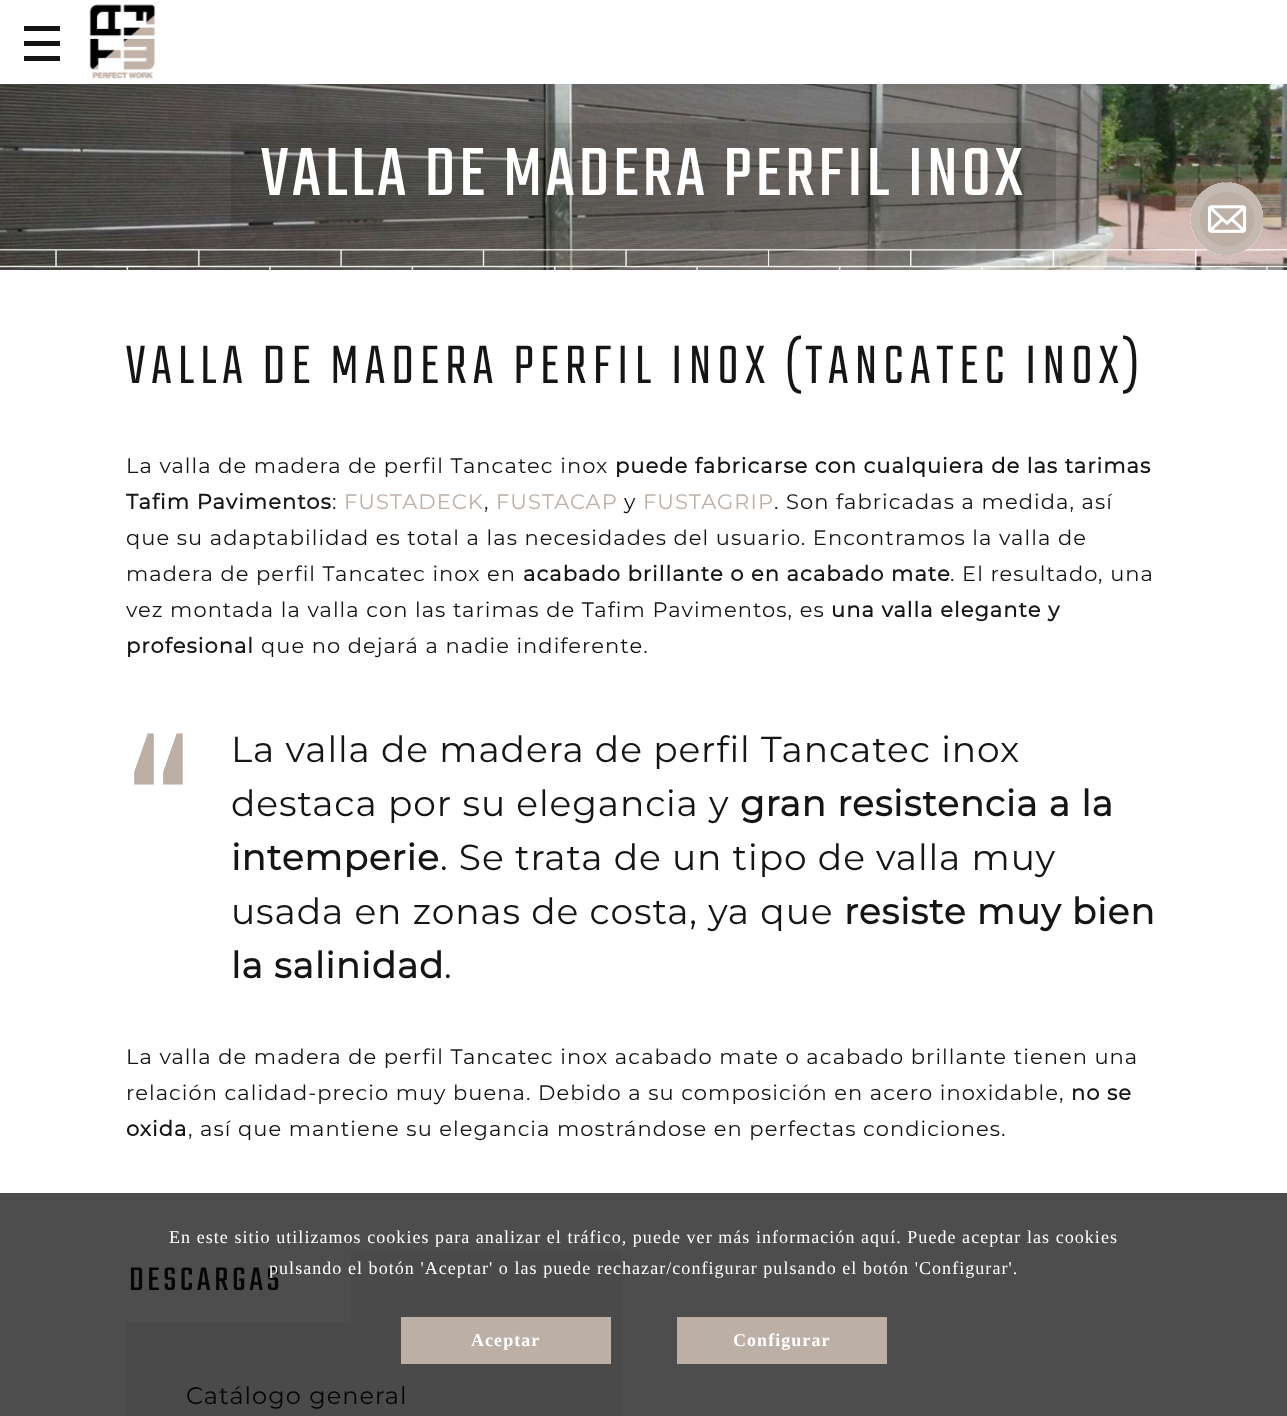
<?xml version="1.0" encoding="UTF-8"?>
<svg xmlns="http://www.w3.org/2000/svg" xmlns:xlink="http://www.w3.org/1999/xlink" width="1287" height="1416">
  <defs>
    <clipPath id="clip1"><rect x="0" y="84" width="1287" height="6" /></clipPath>
  </defs>
  <rect width="100%" height="100%" fill="#ffffff" />
  <rect y="1193" width="1287" height="223" fill="#4d4d4d" />
  <image x="0" y="84" width="1287" height="186" xlink:href="image3.png" />
  <g clip-path="url(#clip1)">
    <rect width="1287" height="84" fill="#000000" fill-opacity="0.1" filter="blur(7.5px)" />
  </g>
  <rect x="24" y="41" width="36" height="5" fill="#151515" />
  <rect x="24" y="26" width="36" height="5" fill="#151515" />
  <rect x="24" y="56" width="36" height="5" fill="#151515" />
  <image x="89" y="4" width="67" height="75" xlink:href="image1.png" />
  <image x="1190" y="182" width="74" height="73" xlink:href="image2.png" />
  <rect x="231" y="123" width="825" height="108" fill="#000000" fill-opacity="0.1" />
  <rect x="126" y="1251" width="495" height="165" fill="#4a4a4a" />
  <rect x="126" y="1251" width="225" height="71" fill="#4d4d4d" />
  <rect x="401" y="1317" width="210" height="47" fill="#bcafa5" />
  <rect x="677" y="1317" width="210" height="47" fill="#bcafa5" />
  <text x="261" y="195" style="font-family: Teko; font-size: 75px; letter-spacing: 3.75px; fill: #ffffff">VALLA DE MADERA PERFIL INOX</text>
  <text x="126" y="383" style="font-family: Teko; font-size: 60px; font-weight: 300; letter-spacing: 6px; fill: #151515">VALLA DE MADERA PERFIL INOX (TANCATEC INOX)</text>
  <text x="126" y="473" style="font-family: Montserrat; font-size: 21px; font-weight: 100; letter-spacing: 1.05px; fill: #151515">La valla de madera de perfil Tancatec inox</text>
  <text x="615" y="473" style="font-family: Montserrat; font-size: 21px; font-weight: bold; letter-spacing: 1.05px; fill: #151515">puede fabricarse con cualquiera de las tarimas</text>
  <text x="126" y="509" style="font-family: Montserrat; font-size: 21px; font-weight: bold; letter-spacing: 1.05px; fill: #151515">Tafim Pavimentos</text>
  <text x="332" y="509" style="font-family: Montserrat; font-size: 21px; font-weight: 100; letter-spacing: 1.05px; fill: #151515">:</text>
  <text x="344" y="509" style="font-family: Montserrat; font-size: 21px; font-weight: 100; letter-spacing: 1.05px; fill: #bcafa5">FUSTADECK</text>
  <text x="484" y="509" style="font-family: Montserrat; font-size: 21px; font-weight: 100; letter-spacing: 1.05px; fill: #151515">,</text>
  <text x="496" y="509" style="font-family: Montserrat; font-size: 21px; font-weight: 100; letter-spacing: 1.05px; fill: #bcafa5">FUSTACAP</text>
  <text x="624" y="509" style="font-family: Montserrat; font-size: 21px; font-weight: 100; letter-spacing: 1.05px; fill: #151515">y</text>
  <text x="643" y="509" style="font-family: Montserrat; font-size: 21px; font-weight: 100; letter-spacing: 1.05px; fill: #bcafa5">FUSTAGRIP</text>
  <text x="774" y="509" style="font-family: Montserrat; font-size: 21px; font-weight: 100; letter-spacing: 1.05px; fill: #151515">. Son fabricadas a medida, así</text>
  <text x="126" y="545" style="font-family: Montserrat; font-size: 21px; font-weight: 100; letter-spacing: 1.05px; fill: #151515">que su adaptabilidad es total a las necesidades del usuario. Encontramos la valla de</text>
  <text x="126" y="581" style="font-family: Montserrat; font-size: 21px; font-weight: 100; letter-spacing: 1.05px; fill: #151515">madera de perfil Tancatec inox en</text>
  <text x="523" y="581" style="font-family: Montserrat; font-size: 21px; font-weight: bold; letter-spacing: 1.05px; fill: #151515">acabado brillante o en acabado mate</text>
  <text x="950" y="581" style="font-family: Montserrat; font-size: 21px; font-weight: 100; letter-spacing: 1.05px; fill: #151515">. El resultado, una</text>
  <text x="126" y="617" style="font-family: Montserrat; font-size: 21px; font-weight: 100; letter-spacing: 1.05px; fill: #151515">vez montada la valla con las tarimas de Tafim Pavimentos, es</text>
  <text x="831" y="617" style="font-family: Montserrat; font-size: 21px; font-weight: bold; letter-spacing: 1.05px; fill: #151515">una valla elegante y</text>
  <text x="126" y="653" style="font-family: Montserrat; font-size: 21px; font-weight: bold; letter-spacing: 1.05px; fill: #151515">profesional</text>
  <text x="261" y="653" style="font-family: Montserrat; font-size: 21px; font-weight: 100; letter-spacing: 1.05px; fill: #151515">que no dejará a nadie indiferente.</text>
  <text x="128" y="855" style="font-family: Teko; font-size: 194px; letter-spacing: 0.9px; fill: #bcafa5">“</text>
  <text x="231" y="762" style="font-family: Montserrat; font-size: 36px; font-weight: 100; letter-spacing: 0.9px; fill: #151515">La valla de madera de perfil Tancatec inox</text>
  <text x="231" y="816" style="font-family: Montserrat; font-size: 36px; font-weight: 100; letter-spacing: 0.9px; fill: #151515">destaca por su elegancia y</text>
  <text x="740" y="816" style="font-family: Montserrat; font-size: 36px; font-weight: bold; letter-spacing: 0.9px; fill: #151515">gran resistencia a la</text>
  <text x="231" y="870" style="font-family: Montserrat; font-size: 36px; font-weight: bold; letter-spacing: 0.9px; fill: #151515">intemperie</text>
  <text x="440" y="870" style="font-family: Montserrat; font-size: 36px; font-weight: 100; letter-spacing: 0.9px; fill: #151515">. Se trata de un tipo de valla muy</text>
  <text x="231" y="924" style="font-family: Montserrat; font-size: 36px; font-weight: 100; letter-spacing: 0.9px; fill: #151515">usada en zonas de costa, ya que</text>
  <text x="844" y="924" style="font-family: Montserrat; font-size: 36px; font-weight: bold; letter-spacing: 0.9px; fill: #151515">resiste muy bien</text>
  <text x="231" y="978" style="font-family: Montserrat; font-size: 36px; font-weight: bold; letter-spacing: 0.9px; fill: #151515">la salinidad</text>
  <text x="444" y="978" style="font-family: Montserrat; font-size: 36px; font-weight: 100; letter-spacing: 0.9px; fill: #151515">.</text>
  <text x="126" y="1064" style="font-family: Montserrat; font-size: 21px; font-weight: 100; letter-spacing: 1.05px; fill: #151515">La valla de madera de perfil Tancatec inox acabado mate o acabado brillante tienen una</text>
  <text x="126" y="1100" style="font-family: Montserrat; font-size: 21px; font-weight: 100; letter-spacing: 1.05px; fill: #151515">relación calidad-precio muy buena. Debido a su composición en acero inoxidable,</text>
  <text x="1071" y="1100" style="font-family: Montserrat; font-size: 21px; font-weight: bold; letter-spacing: 1.05px; fill: #151515">no se</text>
  <text x="126" y="1136" style="font-family: Montserrat; font-size: 21px; font-weight: bold; letter-spacing: 1.05px; fill: #151515">oxida</text>
  <text x="188" y="1136" style="font-family: Montserrat; font-size: 21px; font-weight: 100; letter-spacing: 1.05px; fill: #151515">, así que mantiene su elegancia mostrándose en perfectas condiciones.</text>
  <text x="129" y="1290" style="font-family: Teko; font-size: 36px; letter-spacing: 3.5px; fill: #060606">DESCARGAS</text>
  <text x="186" y="1404" style="font-family: Montserrat; font-size: 24px; font-weight: 100; letter-spacing: 1.05px; fill: #060606">Catálogo general</text>
  <text x="169" y="1243" style="font-family: Liberation Serif; font-size: 18px; letter-spacing: 1.05px; fill: #ffffff">En este sitio utilizamos cookies para analizar el tráfico, puede ver más información aquí. Puede aceptar las cookies</text>
  <text x="269" y="1274" style="font-family: Liberation Serif; font-size: 18px; letter-spacing: 1.05px; fill: #ffffff">pulsando el botón 'Aceptar' o las puede rechazar/configurar pulsando el botón 'Configurar'.</text>
  <text x="471" y="1346" style="font-family: Liberation Serif; font-size: 18px; font-weight: bold; letter-spacing: 1.05px; fill: #ffffff">Aceptar</text>
  <text x="733" y="1346" style="font-family: Liberation Serif; font-size: 18px; font-weight: bold; letter-spacing: 1.05px; fill: #ffffff">Configurar</text>
</svg>
